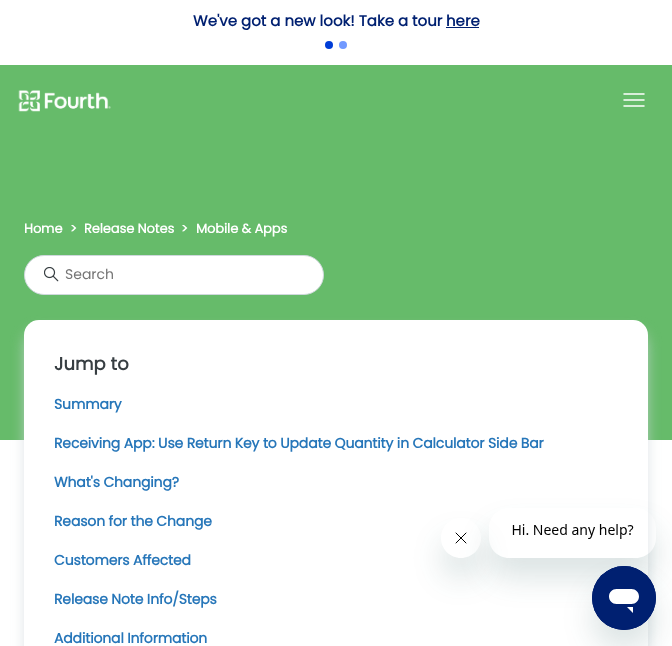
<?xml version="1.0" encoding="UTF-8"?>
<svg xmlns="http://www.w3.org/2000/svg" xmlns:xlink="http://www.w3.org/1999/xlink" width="672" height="646">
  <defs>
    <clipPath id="clip1"><path d="M 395 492 h 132 v 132 h -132 z m 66 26 c 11 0 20 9 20 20 c 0 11 -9 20 -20 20 c -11 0 -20 -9 -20 -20 c 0 -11 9 -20 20 -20 z" clip-rule="evenodd" /></clipPath>
    <clipPath id="clip2"><path d="M 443 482 h 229 v 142 h -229 z m 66 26 h 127 c 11 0 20 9 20 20 v 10 c 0 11 -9 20 -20 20 h -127 c -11 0 -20 -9 -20 -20 v -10 c 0 -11 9 -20 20 -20 z" clip-rule="evenodd" /></clipPath>
  </defs>
  <rect width="100%" height="100%" fill="#ffffff" />
  <rect x="446" y="27" width="33" height="1" fill="#002071" />
  <circle cx="329" cy="45" r="4" fill="#003dd7" />
  <circle cx="343" cy="45" r="4" fill="#7199ff" />
  <rect y="65" width="672" height="375" fill="#66bb6a" />
  <image x="18" y="90" width="93" height="22" xlink:href="image1.png" />
  <path d="M 624 94 h 20 m -20 6 h 20 m -20 6 h 20" fill="none" stroke="#ffffff" stroke-width="1.5" stroke-linecap="round" />
  <rect x="24.5" y="255.5" width="299" height="39" rx="19.5" fill="#ffffff" stroke="#cfd8dc" />
  <image x="44" y="267" width="15" height="15" xlink:href="image2.png" />
  <rect x="27" y="333" width="618" height="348" rx="12" fill="#cfd8dc" filter="blur(7.5px)" />
  <rect x="24" y="320" width="624" height="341" rx="15" fill="#ffffff" />
  <g clip-path="url(#clip1)">
    <rect x="441" y="538" width="40" height="40" rx="20" fill="#17494d" fill-opacity="0.15" filter="blur(15px)" />
  </g>
  <image x="455" y="532" width="12" height="12" xlink:href="image4.png" />
  <g clip-path="url(#clip2)">
    <rect x="489" y="528" width="167" height="50" rx="20" fill="#17494d" fill-opacity="0.15" filter="blur(15px)" />
  </g>
  <image x="512" y="524" width="122" height="15" xlink:href="image3.png" />
  <rect x="592" y="586" width="64" height="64" rx="32" fill="#17494d" fill-opacity="0.15" filter="blur(15px)" />
  <image x="592" y="566" width="64" height="64" xlink:href="image5.png" />
  <text x="193" y="26" style="font-family: Poppins; font-size: 15px; font-weight: bold; fill: #002071">We've got a new look! Take a tour</text>
  <text x="446" y="26" style="font-family: Poppins; font-size: 15px; font-weight: bold; fill: #002071">here</text>
  <text x="24" y="233" style="font-family: Poppins; font-size: 13px; font-weight: bold; letter-spacing: -0.1px; fill: #ffffff">Home</text>
  <text x="70" y="233" style="font-family: Poppins; font-size: 13px; font-weight: bold; fill: #ffffff">&gt;</text>
  <text x="84" y="233" style="font-family: Poppins; font-size: 13px; font-weight: bold; letter-spacing: -0.1px; fill: #ffffff">Release Notes</text>
  <text x="181" y="233" style="font-family: Poppins; font-size: 13px; font-weight: bold; fill: #ffffff">&gt;</text>
  <text x="196" y="233" style="font-family: Poppins; font-size: 13px; font-weight: bold; letter-spacing: -0.1px; fill: #ffffff">Mobile &amp; Apps</text>
  <text x="65" y="279" style="font-family: Poppins; font-size: 14px; fill: #757575">Search</text>
  <text x="54" y="370" style="font-family: Poppins; font-size: 18px; font-weight: bold; fill: #373e42">Jump to</text>
  <text x="54" y="409" style="font-family: Poppins; font-size: 14px; font-weight: bold; letter-spacing: -0.15px; fill: #2676b9">Summary</text>
  <text x="54" y="448" style="font-family: Poppins; font-size: 14px; font-weight: bold; letter-spacing: -0.15px; fill: #2676b9">Receiving App: Use Return Key to Update Quantity in Calculator Side Bar</text>
  <text x="54" y="487" style="font-family: Poppins; font-size: 14px; font-weight: bold; letter-spacing: -0.15px; fill: #2676b9">What's Changing?</text>
  <text x="54" y="526" style="font-family: Poppins; font-size: 14px; font-weight: bold; letter-spacing: -0.15px; fill: #2676b9">Reason for the Change</text>
  <text x="54" y="565" style="font-family: Poppins; font-size: 14px; font-weight: bold; letter-spacing: -0.15px; fill: #2676b9">Customers Affected</text>
  <text x="54" y="604" style="font-family: Poppins; font-size: 14px; font-weight: bold; letter-spacing: -0.15px; fill: #2676b9">Release Note Info/Steps</text>
  <text x="54" y="643" style="font-family: Poppins; font-size: 14px; font-weight: bold; letter-spacing: -0.15px; fill: #2676b9">Additional Information</text>
</svg>
